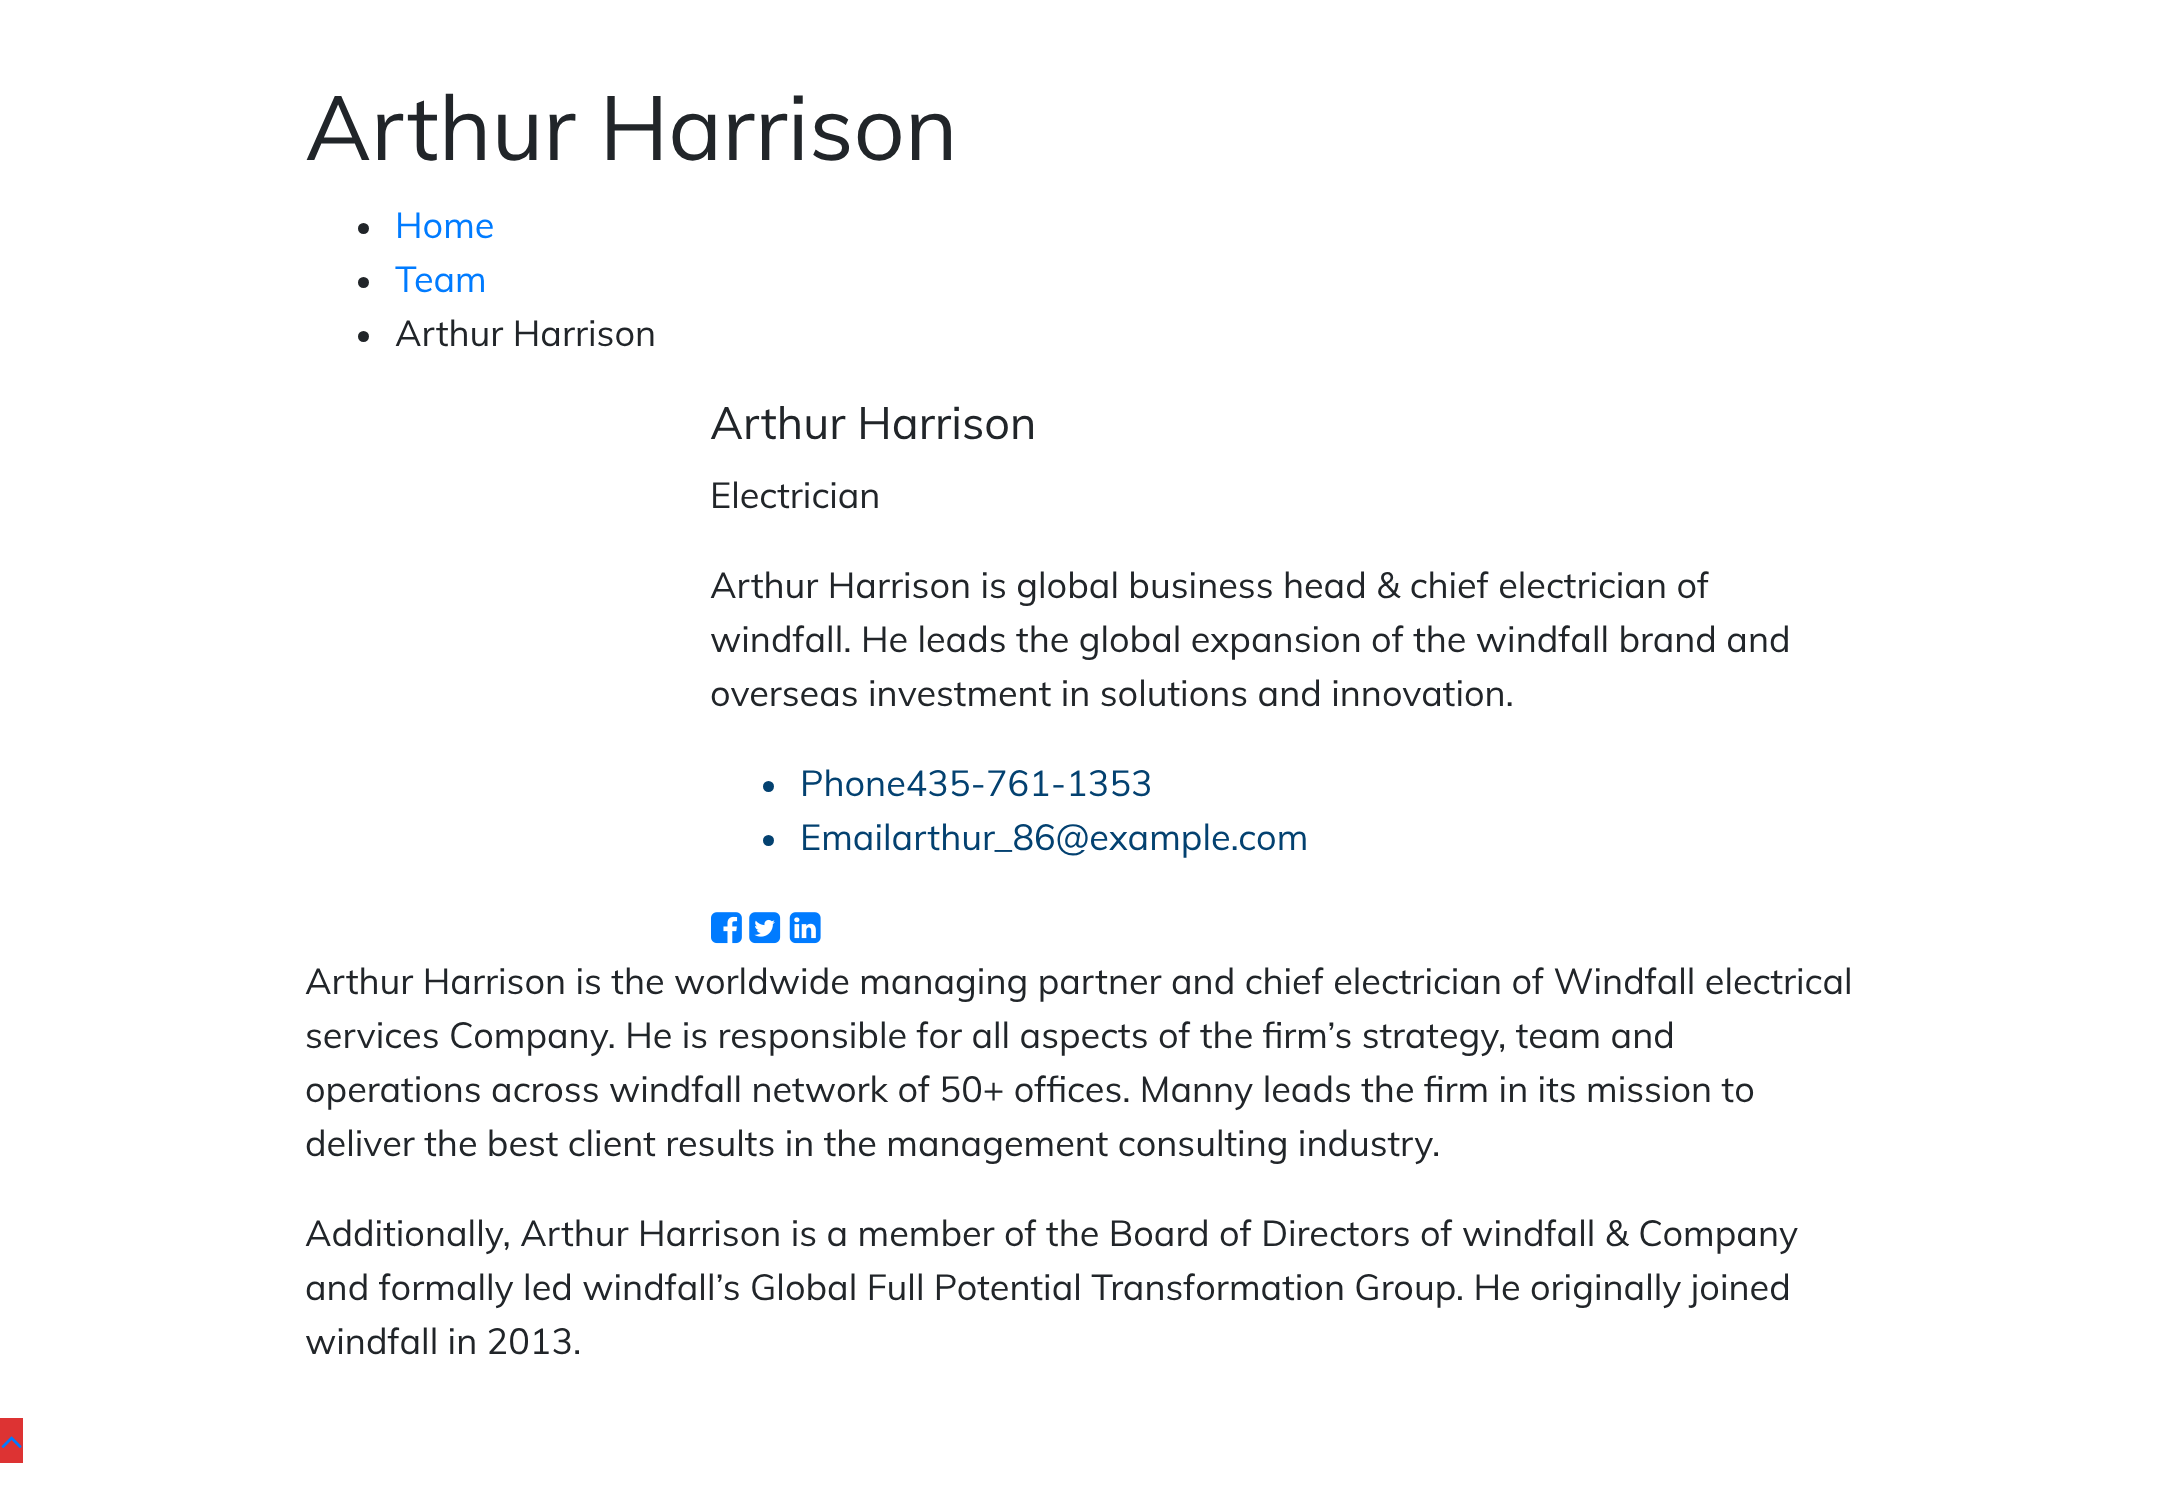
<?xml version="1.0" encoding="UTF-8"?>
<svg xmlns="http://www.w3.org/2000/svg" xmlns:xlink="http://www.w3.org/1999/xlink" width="2161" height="1493">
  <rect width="100%" height="100%" fill="#ffffff" />
  <circle cx="363.5" cy="228.5" r="5.5" fill="#212529" />
  <circle cx="363.5" cy="282.5" r="5.5" fill="#212529" />
  <circle cx="363.5" cy="336.5" r="5.5" fill="#212529" />
  <circle cx="768.5" cy="786.5" r="5.5" fill="#034170" />
  <circle cx="768.5" cy="840.5" r="5.5" fill="#034170" />
  <image x="711" y="912" width="31" height="32" xlink:href="image1.png" />
  <image x="749" y="912" width="32" height="32" xlink:href="image2.png" />
  <image x="789" y="912" width="32" height="32" xlink:href="image3.png" />
  <rect y="1418" width="23" height="45" fill="#dd3333" />
  <image x="1" y="1436" width="21" height="12" xlink:href="image4.png" />
  <text x="305" y="160" style="font-family: Muli; font-size: 90px; fill: #212529">Arthur Harrison</text>
  <text x="395" y="238" style="font-family: Muli; font-size: 36px; fill: #007bff">Home</text>
  <text x="395" y="292" style="font-family: Muli; font-size: 36px; fill: #007bff">Team</text>
  <text x="395" y="346" style="font-family: Muli; font-size: 36px; fill: #212529">Arthur Harrison</text>
  <text x="710" y="439" style="font-family: Muli; font-size: 45px; fill: #212529">Arthur Harrison</text>
  <text x="710" y="508" style="font-family: Muli; font-size: 36px; fill: #212529">Electrician</text>
  <text x="710" y="598" style="font-family: Muli; font-size: 36px; fill: #212529">Arthur Harrison is global business head &amp; chief electrician of</text>
  <text x="710" y="652" style="font-family: Muli; font-size: 36px; fill: #212529">windfall. He leads the global expansion of the windfall brand and</text>
  <text x="710" y="706" style="font-family: Muli; font-size: 36px; fill: #212529">overseas investment in solutions and innovation.</text>
  <text x="800" y="796" style="font-family: Muli; font-size: 36px; fill: #034170">Phone435-761-1353</text>
  <text x="800" y="850" style="font-family: Muli; font-size: 36px; fill: #034170">Emailarthur_86@example.com</text>
  <text x="305" y="994" style="font-family: Muli; font-size: 36px; fill: #212529">Arthur Harrison is the worldwide managing partner and chief electrician of Windfall electrical</text>
  <text x="305" y="1048" style="font-family: Muli; font-size: 36px; fill: #212529">services Company. He is responsible for all aspects of the firm’s strategy, team and</text>
  <text x="305" y="1102" style="font-family: Muli; font-size: 36px; fill: #212529">operations across windfall network of 50+ offices. Manny leads the firm in its mission to</text>
  <text x="305" y="1156" style="font-family: Muli; font-size: 36px; fill: #212529">deliver the best client results in the management consulting industry.</text>
  <text x="305" y="1246" style="font-family: Muli; font-size: 36px; fill: #212529">Additionally, Arthur Harrison is a member of the Board of Directors of windfall &amp; Company</text>
  <text x="305" y="1300" style="font-family: Muli; font-size: 36px; fill: #212529">and formally led windfall’s Global Full Potential Transformation Group. He originally joined</text>
  <text x="305" y="1354" style="font-family: Muli; font-size: 36px; fill: #212529">windfall in 2013.</text>
</svg>
